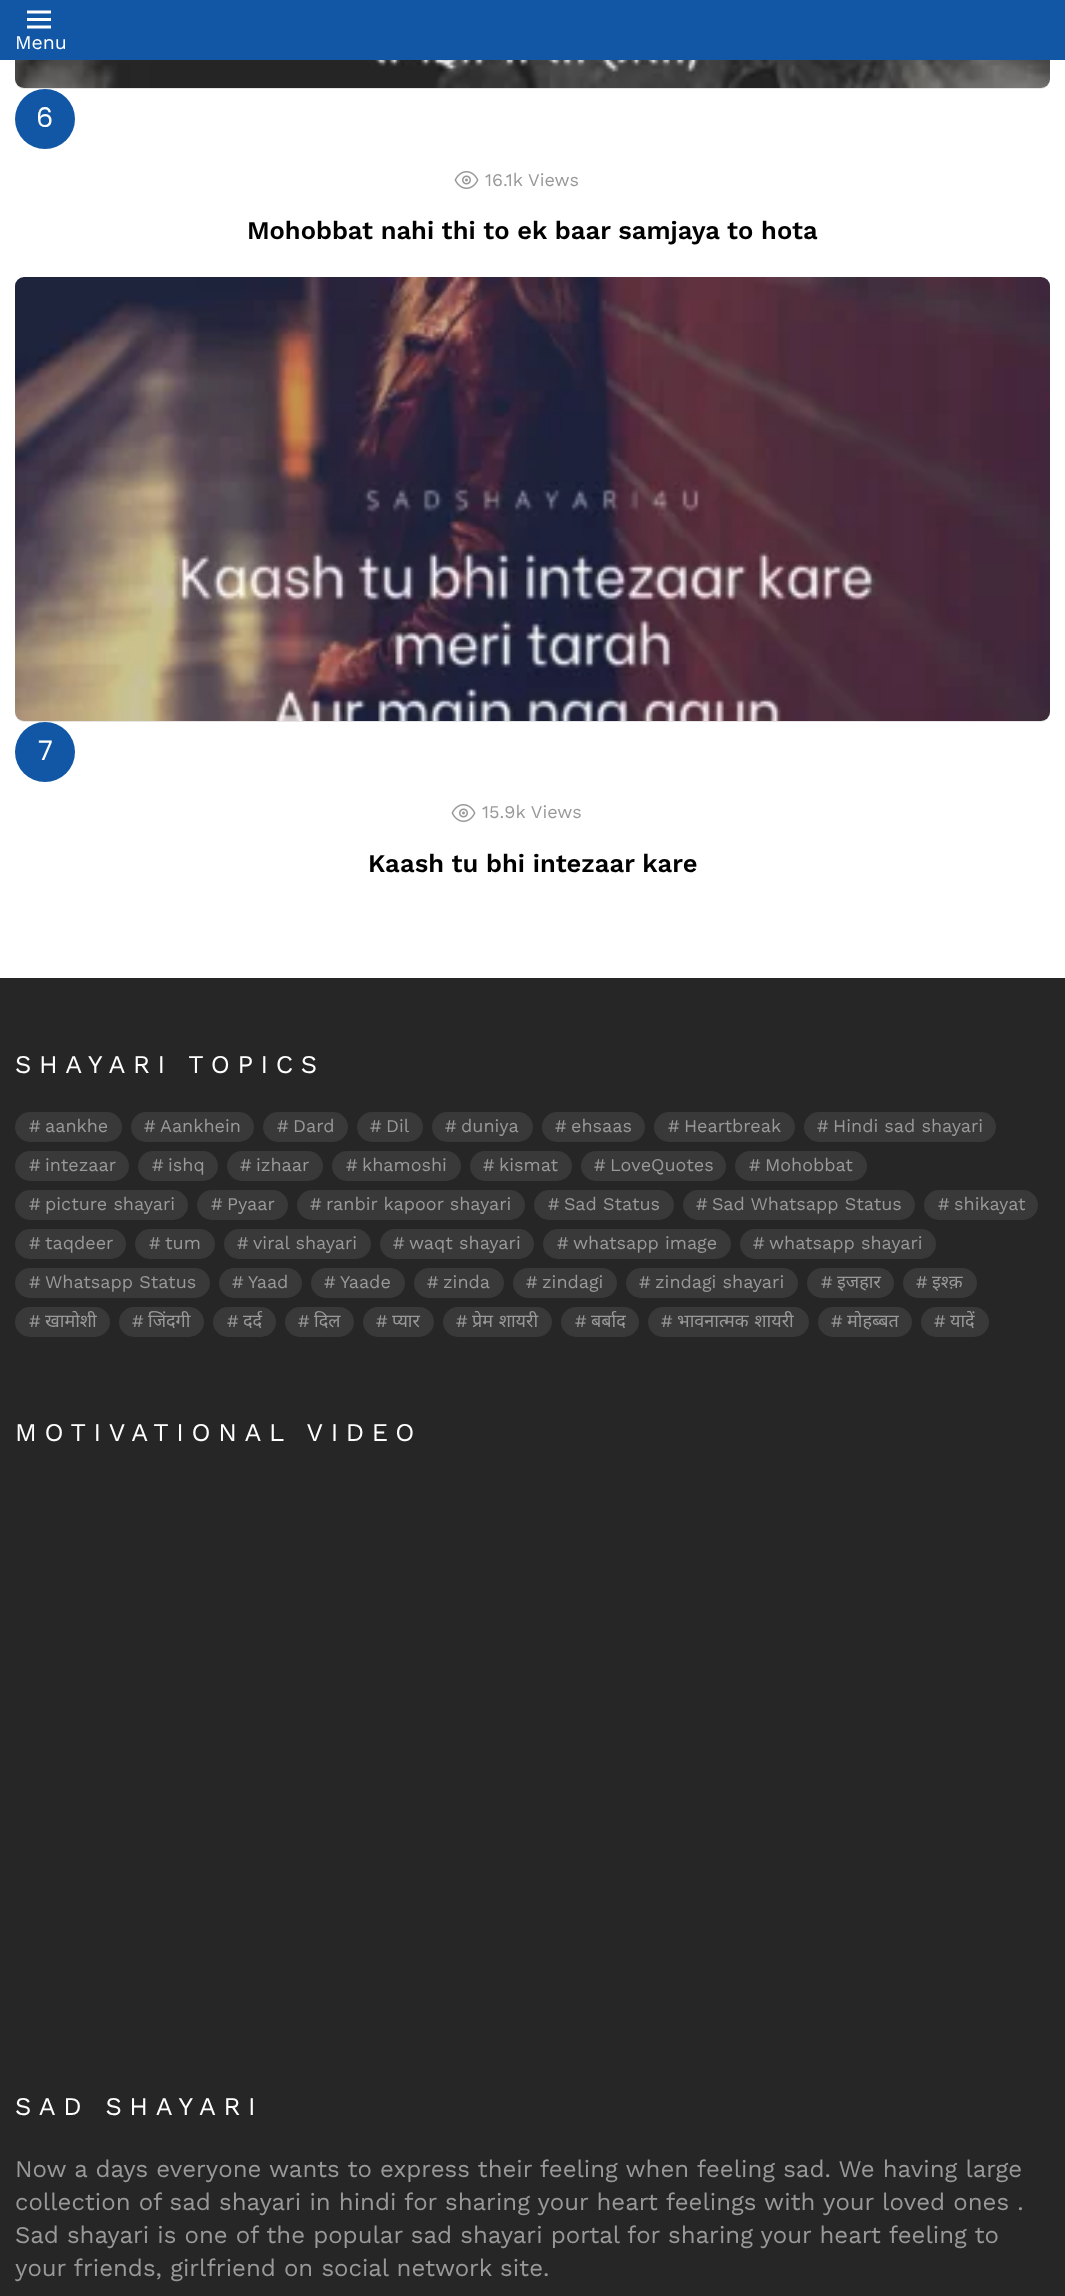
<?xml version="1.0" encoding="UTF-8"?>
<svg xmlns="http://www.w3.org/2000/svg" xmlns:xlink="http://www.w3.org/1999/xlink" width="1065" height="2296">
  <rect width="100%" height="100%" fill="#ffffff" />
  <rect x="15" y="-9" width="1035" height="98" rx="9" fill="#e6e6e6" />
  <rect width="1065" height="60" fill="#1257a5" />
  <image x="27" y="10" width="24" height="19" xlink:href="image1.png" />
  <image x="15" y="60" width="1035" height="28" xlink:href="image2.png" />
  <circle cx="45" cy="119" r="30" fill="#1257a5" />
  <image x="454" y="171" width="25" height="18" xlink:href="image3.png" />
  <rect x="15" y="278" width="1035" height="444" rx="9" fill="#e6e6e6" />
  <image x="15" y="277" width="1035" height="444" xlink:href="image4.png" />
  <circle cx="45" cy="752" r="30" fill="#1257a5" />
  <image x="451" y="804" width="25" height="18" xlink:href="image3.png" />
  <rect y="978" width="1065" height="1318" fill="#262626" />
  <text x="15" y="49" style="font-family: Work Sans; font-size: 19.5px; fill: #ffffff">Menu</text>
  <text x="36" y="127" style="font-family: Poppins; font-size: 27px; fill: #ffffff">6</text>
  <text x="485" y="186" style="font-family: Work Sans; font-size: 18px; fill: #999999">16.1k Views</text>
  <text x="247" y="239" style="font-family: Work Sans; font-size: 25.5px; font-weight: 600; fill: #000000">Mohobbat nahi thi to ek baar samjaya to hota</text>
  <text x="38" y="760" style="font-family: Poppins; font-size: 27px; fill: #ffffff">7</text>
  <text x="482" y="818" style="font-family: Work Sans; font-size: 18px; fill: #999999">15.9k Views</text>
  <text x="368" y="872" style="font-family: Work Sans; font-size: 25.5px; font-weight: 600; fill: #000000">Kaash tu bhi intezaar kare</text>
  <text x="15" y="1073" style="font-family: Work Sans; font-size: 25.5px; letter-spacing: 7.6px; fill: #ffffff">SHAYARI TOPICS</text>
  <text x="29" y="1132" style="font-family: Work Sans; font-size: 18px; fill: #999999">#</text>
  <text x="45" y="1132" style="font-family: Work Sans; font-size: 18px; fill: #999999">aankhe</text>
  <rect x="16" y="1113" width="105" height="28" rx="14" fill="#999999" fill-opacity="0.17" stroke="#393939" stroke-width="2" />
  <text x="144" y="1132" style="font-family: Work Sans; font-size: 18px; fill: #999999">#</text>
  <text x="160" y="1132" style="font-family: Work Sans; font-size: 18px; fill: #999999">Aankhein</text>
  <rect x="132" y="1113" width="121" height="28" rx="14" fill="#999999" fill-opacity="0.17" stroke="#393939" stroke-width="2" />
  <text x="277" y="1132" style="font-family: Work Sans; font-size: 18px; fill: #999999">#</text>
  <text x="293" y="1132" style="font-family: Work Sans; font-size: 18px; fill: #999999">Dard</text>
  <rect x="264" y="1113" width="83" height="28" rx="14" fill="#999999" fill-opacity="0.17" stroke="#393939" stroke-width="2" />
  <text x="370" y="1132" style="font-family: Work Sans; font-size: 18px; fill: #999999">#</text>
  <text x="386" y="1132" style="font-family: Work Sans; font-size: 18px; fill: #999999">Dil</text>
  <rect x="358" y="1113" width="64" height="28" rx="14" fill="#999999" fill-opacity="0.17" stroke="#393939" stroke-width="2" />
  <text x="445" y="1132" style="font-family: Work Sans; font-size: 18px; fill: #999999">#</text>
  <text x="461" y="1132" style="font-family: Work Sans; font-size: 18px; fill: #999999">duniya</text>
  <rect x="433" y="1113" width="99" height="28" rx="14" fill="#999999" fill-opacity="0.17" stroke="#393939" stroke-width="2" />
  <text x="555" y="1132" style="font-family: Work Sans; font-size: 18px; fill: #999999">#</text>
  <text x="571" y="1132" style="font-family: Work Sans; font-size: 18px; fill: #999999">ehsaas</text>
  <rect x="543" y="1113" width="101" height="28" rx="14" fill="#999999" fill-opacity="0.17" stroke="#393939" stroke-width="2" />
  <text x="668" y="1132" style="font-family: Work Sans; font-size: 18px; fill: #999999">#</text>
  <text x="684" y="1132" style="font-family: Work Sans; font-size: 18px; fill: #999999">Heartbreak</text>
  <rect x="655" y="1113" width="139" height="28" rx="14" fill="#999999" fill-opacity="0.17" stroke="#393939" stroke-width="2" />
  <text x="817" y="1132" style="font-family: Work Sans; font-size: 18px; fill: #999999">#</text>
  <text x="833" y="1132" style="font-family: Work Sans; font-size: 18px; fill: #999999">Hindi sad shayari</text>
  <rect x="805" y="1113" width="190" height="28" rx="14" fill="#999999" fill-opacity="0.17" stroke="#393939" stroke-width="2" />
  <text x="29" y="1171" style="font-family: Work Sans; font-size: 18px; fill: #999999">#</text>
  <text x="45" y="1171" style="font-family: Work Sans; font-size: 18px; fill: #999999">intezaar</text>
  <rect x="16" y="1152" width="112" height="28" rx="14" fill="#999999" fill-opacity="0.17" stroke="#393939" stroke-width="2" />
  <text x="152" y="1171" style="font-family: Work Sans; font-size: 18px; fill: #999999">#</text>
  <text x="168" y="1171" style="font-family: Work Sans; font-size: 18px; fill: #999999">ishq</text>
  <rect x="139" y="1152" width="78" height="28" rx="14" fill="#999999" fill-opacity="0.17" stroke="#393939" stroke-width="2" />
  <text x="240" y="1171" style="font-family: Work Sans; font-size: 18px; fill: #999999">#</text>
  <text x="256" y="1171" style="font-family: Work Sans; font-size: 18px; fill: #999999">izhaar</text>
  <rect x="228" y="1152" width="94" height="28" rx="14" fill="#999999" fill-opacity="0.17" stroke="#393939" stroke-width="2" />
  <text x="346" y="1171" style="font-family: Work Sans; font-size: 18px; fill: #999999">#</text>
  <text x="362" y="1171" style="font-family: Work Sans; font-size: 18px; fill: #999999">khamoshi</text>
  <rect x="333" y="1152" width="127" height="28" rx="14" fill="#999999" fill-opacity="0.17" stroke="#393939" stroke-width="2" />
  <text x="483" y="1171" style="font-family: Work Sans; font-size: 18px; fill: #999999">#</text>
  <text x="499" y="1171" style="font-family: Work Sans; font-size: 18px; fill: #999999">kismat</text>
  <rect x="471" y="1152" width="100" height="28" rx="14" fill="#999999" fill-opacity="0.17" stroke="#393939" stroke-width="2" />
  <text x="594" y="1171" style="font-family: Work Sans; font-size: 18px; fill: #999999">#</text>
  <text x="610" y="1171" style="font-family: Work Sans; font-size: 18px; fill: #999999">LoveQuotes</text>
  <rect x="582" y="1152" width="143" height="28" rx="14" fill="#999999" fill-opacity="0.17" stroke="#393939" stroke-width="2" />
  <text x="749" y="1171" style="font-family: Work Sans; font-size: 18px; fill: #999999">#</text>
  <text x="765" y="1171" style="font-family: Work Sans; font-size: 18px; fill: #999999">Mohobbat</text>
  <rect x="736" y="1152" width="130" height="28" rx="14" fill="#999999" fill-opacity="0.17" stroke="#393939" stroke-width="2" />
  <text x="29" y="1210" style="font-family: Work Sans; font-size: 18px; fill: #999999">#</text>
  <text x="45" y="1210" style="font-family: Work Sans; font-size: 18px; fill: #999999">picture shayari</text>
  <rect x="16" y="1191" width="171" height="28" rx="14" fill="#999999" fill-opacity="0.17" stroke="#393939" stroke-width="2" />
  <text x="211" y="1210" style="font-family: Work Sans; font-size: 18px; fill: #999999">#</text>
  <text x="227" y="1210" style="font-family: Work Sans; font-size: 18px; fill: #999999">Pyaar</text>
  <rect x="198" y="1191" width="89" height="28" rx="14" fill="#999999" fill-opacity="0.17" stroke="#393939" stroke-width="2" />
  <text x="310" y="1210" style="font-family: Work Sans; font-size: 18px; fill: #999999">#</text>
  <text x="326" y="1210" style="font-family: Work Sans; font-size: 18px; fill: #999999">ranbir kapoor shayari</text>
  <rect x="298" y="1191" width="226" height="28" rx="14" fill="#999999" fill-opacity="0.17" stroke="#393939" stroke-width="2" />
  <text x="548" y="1210" style="font-family: Work Sans; font-size: 18px; fill: #999999">#</text>
  <text x="564" y="1210" style="font-family: Work Sans; font-size: 18px; fill: #999999">Sad Status</text>
  <rect x="535" y="1191" width="138" height="28" rx="14" fill="#999999" fill-opacity="0.17" stroke="#393939" stroke-width="2" />
  <text x="696" y="1210" style="font-family: Work Sans; font-size: 18px; fill: #999999">#</text>
  <text x="712" y="1210" style="font-family: Work Sans; font-size: 18px; fill: #999999">Sad Whatsapp Status</text>
  <rect x="684" y="1191" width="230" height="28" rx="14" fill="#999999" fill-opacity="0.17" stroke="#393939" stroke-width="2" />
  <text x="938" y="1210" style="font-family: Work Sans; font-size: 18px; fill: #999999">#</text>
  <text x="954" y="1210" style="font-family: Work Sans; font-size: 18px; fill: #999999">shikayat</text>
  <rect x="925" y="1191" width="112" height="28" rx="14" fill="#999999" fill-opacity="0.17" stroke="#393939" stroke-width="2" />
  <text x="29" y="1249" style="font-family: Work Sans; font-size: 18px; fill: #999999">#</text>
  <text x="45" y="1249" style="font-family: Work Sans; font-size: 18px; fill: #999999">taqdeer</text>
  <rect x="16" y="1230" width="109" height="28" rx="14" fill="#999999" fill-opacity="0.17" stroke="#393939" stroke-width="2" />
  <text x="149" y="1249" style="font-family: Work Sans; font-size: 18px; fill: #999999">#</text>
  <text x="165" y="1249" style="font-family: Work Sans; font-size: 18px; fill: #999999">tum</text>
  <rect x="136" y="1230" width="78" height="28" rx="14" fill="#999999" fill-opacity="0.17" stroke="#393939" stroke-width="2" />
  <text x="237" y="1249" style="font-family: Work Sans; font-size: 18px; fill: #999999">#</text>
  <text x="253" y="1249" style="font-family: Work Sans; font-size: 18px; fill: #999999">viral shayari</text>
  <rect x="225" y="1230" width="145" height="28" rx="14" fill="#999999" fill-opacity="0.17" stroke="#393939" stroke-width="2" />
  <text x="393" y="1249" style="font-family: Work Sans; font-size: 18px; fill: #999999">#</text>
  <text x="409" y="1249" style="font-family: Work Sans; font-size: 18px; fill: #999999">waqt shayari</text>
  <rect x="381" y="1230" width="152" height="28" rx="14" fill="#999999" fill-opacity="0.17" stroke="#393939" stroke-width="2" />
  <text x="557" y="1249" style="font-family: Work Sans; font-size: 18px; fill: #999999">#</text>
  <text x="573" y="1249" style="font-family: Work Sans; font-size: 18px; fill: #999999">whatsapp image</text>
  <rect x="544" y="1230" width="186" height="28" rx="14" fill="#999999" fill-opacity="0.17" stroke="#393939" stroke-width="2" />
  <text x="753" y="1249" style="font-family: Work Sans; font-size: 18px; fill: #999999">#</text>
  <text x="769" y="1249" style="font-family: Work Sans; font-size: 18px; fill: #999999">whatsapp shayari</text>
  <rect x="741" y="1230" width="194" height="28" rx="14" fill="#999999" fill-opacity="0.17" stroke="#393939" stroke-width="2" />
  <text x="29" y="1288" style="font-family: Work Sans; font-size: 18px; fill: #999999">#</text>
  <text x="45" y="1288" style="font-family: Work Sans; font-size: 18px; fill: #999999">Whatsapp Status</text>
  <rect x="16" y="1269" width="193" height="28" rx="14" fill="#999999" fill-opacity="0.17" stroke="#393939" stroke-width="2" />
  <text x="232" y="1288" style="font-family: Work Sans; font-size: 18px; fill: #999999">#</text>
  <text x="248" y="1288" style="font-family: Work Sans; font-size: 18px; fill: #999999">Yaad</text>
  <rect x="220" y="1269" width="81" height="28" rx="14" fill="#999999" fill-opacity="0.17" stroke="#393939" stroke-width="2" />
  <text x="324" y="1288" style="font-family: Work Sans; font-size: 18px; fill: #999999">#</text>
  <text x="340" y="1288" style="font-family: Work Sans; font-size: 18px; fill: #999999">Yaade</text>
  <rect x="312" y="1269" width="92" height="28" rx="14" fill="#999999" fill-opacity="0.17" stroke="#393939" stroke-width="2" />
  <text x="427" y="1288" style="font-family: Work Sans; font-size: 18px; fill: #999999">#</text>
  <text x="443" y="1288" style="font-family: Work Sans; font-size: 18px; fill: #999999">zinda</text>
  <rect x="415" y="1269" width="88" height="28" rx="14" fill="#999999" fill-opacity="0.17" stroke="#393939" stroke-width="2" />
  <text x="526" y="1288" style="font-family: Work Sans; font-size: 18px; fill: #999999">#</text>
  <text x="542" y="1288" style="font-family: Work Sans; font-size: 18px; fill: #999999">zindagi</text>
  <rect x="514" y="1269" width="102" height="28" rx="14" fill="#999999" fill-opacity="0.17" stroke="#393939" stroke-width="2" />
  <text x="639" y="1288" style="font-family: Work Sans; font-size: 18px; fill: #999999">#</text>
  <text x="655" y="1288" style="font-family: Work Sans; font-size: 18px; fill: #999999">zindagi shayari</text>
  <rect x="627" y="1269" width="170" height="28" rx="14" fill="#999999" fill-opacity="0.17" stroke="#393939" stroke-width="2" />
  <text x="821" y="1288" style="font-family: Work Sans; font-size: 18px; fill: #999999">#</text>
  <text x="837" y="1288" style="font-family: Noto Sans; font-size: 18px; fill: #999999">इजहार</text>
  <rect x="808" y="1269" width="85" height="28" rx="14" fill="#999999" fill-opacity="0.17" stroke="#393939" stroke-width="2" />
  <text x="916" y="1288" style="font-family: Work Sans; font-size: 18px; fill: #999999">#</text>
  <text x="932" y="1288" style="font-family: Noto Sans; font-size: 18px; fill: #999999">इश्क़</text>
  <rect x="904" y="1269" width="72" height="28" rx="14" fill="#999999" fill-opacity="0.17" stroke="#393939" stroke-width="2" />
  <text x="29" y="1327" style="font-family: Work Sans; font-size: 18px; fill: #999999">#</text>
  <text x="45" y="1327" style="font-family: Noto Sans; font-size: 18px; fill: #999999">खामोशी</text>
  <rect x="16" y="1308" width="93" height="28" rx="14" fill="#999999" fill-opacity="0.17" stroke="#393939" stroke-width="2" />
  <text x="132" y="1327" style="font-family: Work Sans; font-size: 18px; fill: #999999">#</text>
  <text x="148" y="1327" style="font-family: Noto Sans; font-size: 18px; fill: #999999">जिंदगी</text>
  <rect x="120" y="1308" width="83" height="28" rx="14" fill="#999999" fill-opacity="0.17" stroke="#393939" stroke-width="2" />
  <text x="227" y="1327" style="font-family: Work Sans; font-size: 18px; fill: #999999">#</text>
  <text x="243" y="1327" style="font-family: Noto Sans; font-size: 18px; fill: #999999">दर्द</text>
  <rect x="214" y="1308" width="61" height="28" rx="14" fill="#999999" fill-opacity="0.17" stroke="#393939" stroke-width="2" />
  <text x="298" y="1327" style="font-family: Work Sans; font-size: 18px; fill: #999999">#</text>
  <text x="314" y="1327" style="font-family: Noto Sans; font-size: 18px; fill: #999999">दिल</text>
  <rect x="286" y="1308" width="67" height="28" rx="14" fill="#999999" fill-opacity="0.17" stroke="#393939" stroke-width="2" />
  <text x="376" y="1327" style="font-family: Work Sans; font-size: 18px; fill: #999999">#</text>
  <text x="392" y="1327" style="font-family: Noto Sans; font-size: 18px; fill: #999999">प्यार</text>
  <rect x="364" y="1308" width="69" height="28" rx="14" fill="#999999" fill-opacity="0.17" stroke="#393939" stroke-width="2" />
  <text x="456" y="1327" style="font-family: Work Sans; font-size: 18px; fill: #999999">#</text>
  <text x="472" y="1327" word-spacing="1" style="font-family: Noto Sans; font-size: 18px; fill: #999999">प्रेम शायरी</text>
  <rect x="444" y="1308" width="107" height="28" rx="14" fill="#999999" fill-opacity="0.17" stroke="#393939" stroke-width="2" />
  <text x="575" y="1327" style="font-family: Work Sans; font-size: 18px; fill: #999999">#</text>
  <text x="591" y="1327" style="font-family: Noto Sans; font-size: 18px; fill: #999999">बर्बाद</text>
  <rect x="562" y="1308" width="76" height="28" rx="14" fill="#999999" fill-opacity="0.17" stroke="#393939" stroke-width="2" />
  <text x="661" y="1327" style="font-family: Work Sans; font-size: 18px; fill: #999999">#</text>
  <text x="677" y="1327" word-spacing="1" style="font-family: Noto Sans; font-size: 18px; fill: #999999">भावनात्मक शायरी</text>
  <rect x="649" y="1308" width="159" height="28" rx="14" fill="#999999" fill-opacity="0.17" stroke="#393939" stroke-width="2" />
  <text x="831" y="1327" style="font-family: Work Sans; font-size: 18px; fill: #999999">#</text>
  <text x="847" y="1327" style="font-family: Noto Sans; font-size: 18px; fill: #999999">मोहब्बत</text>
  <rect x="819" y="1308" width="92" height="28" rx="14" fill="#999999" fill-opacity="0.17" stroke="#393939" stroke-width="2" />
  <text x="934" y="1327" style="font-family: Work Sans; font-size: 18px; fill: #999999">#</text>
  <text x="950" y="1327" style="font-family: Noto Sans; font-size: 18px; fill: #999999">यादें</text>
  <rect x="922" y="1308" width="66" height="28" rx="14" fill="#999999" fill-opacity="0.17" stroke="#393939" stroke-width="2" />
  <text x="15" y="1441" style="font-family: Work Sans; font-size: 25.5px; letter-spacing: 7.6px; fill: #ffffff">MOTIVATIONAL VIDEO</text>
  <text x="15" y="2115" style="font-family: Work Sans; font-size: 25.5px; letter-spacing: 7.6px; fill: #ffffff">SAD SHAYARI</text>
  <text x="15" y="2177" style="font-family: Work Sans; font-size: 24px; fill: #999999">Now a days everyone wants to express their feeling when feeling sad. We having large</text>
  <text x="15" y="2210" style="font-family: Work Sans; font-size: 24px; fill: #999999">collection of sad shayari in hindi for sharing your heart feelings with your loved ones .</text>
  <text x="15" y="2243" style="font-family: Work Sans; font-size: 24px; fill: #999999">Sad shayari is one of the popular sad shayari portal for sharing your heart feeling to</text>
  <text x="15" y="2276" style="font-family: Work Sans; font-size: 24px; fill: #999999">your friends, girlfriend on social network site.</text>
</svg>
